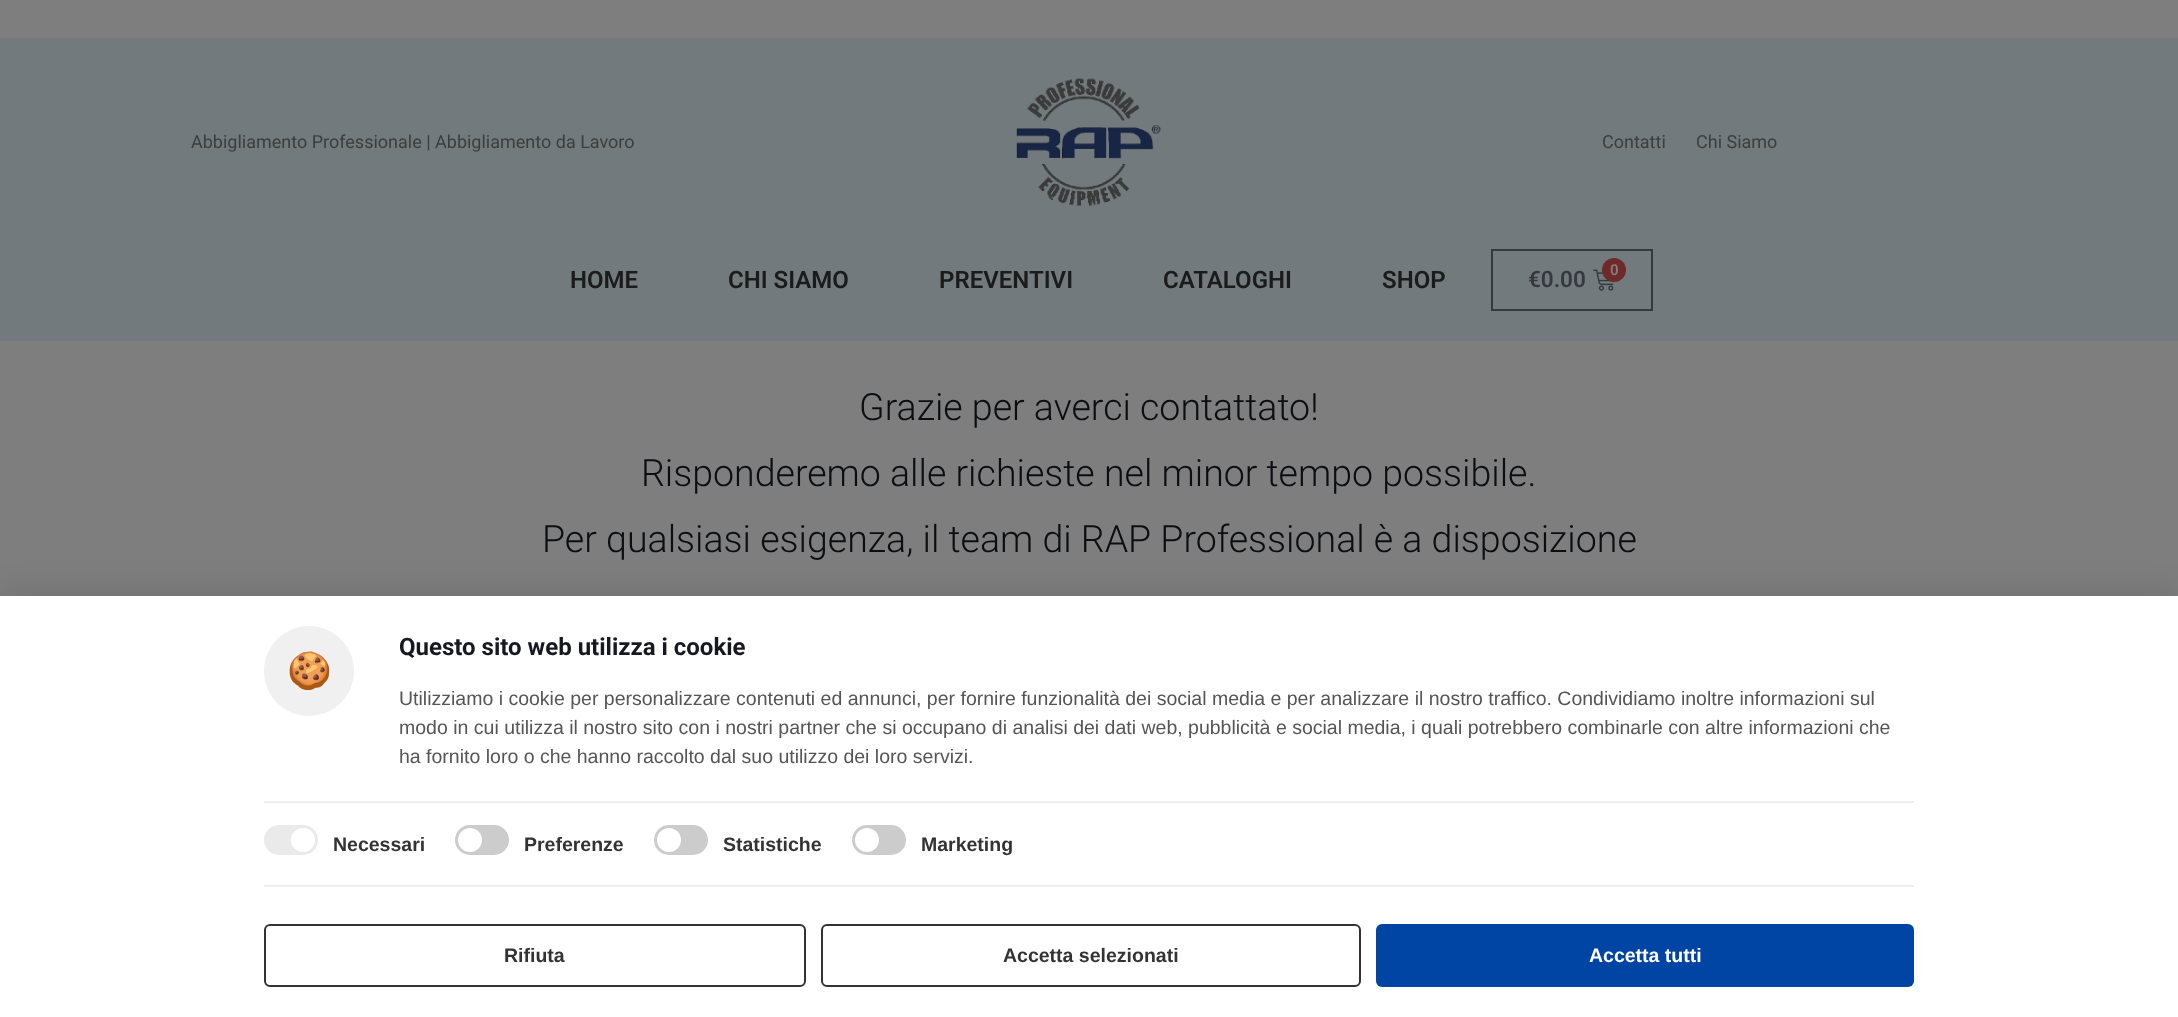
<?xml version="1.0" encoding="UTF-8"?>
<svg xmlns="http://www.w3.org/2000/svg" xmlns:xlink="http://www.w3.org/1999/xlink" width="2178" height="1017">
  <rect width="100%" height="100%" fill="#7e7e7e" />
  <rect y="38" width="2178" height="303" fill="#727a7d" />
  <image x="1016" y="78" width="145" height="128" xlink:href="image1.png" />
  <rect x="1492" y="250" width="160" height="60" fill="none" stroke="#35393f" stroke-width="2" />
  <image x="1593" y="269" width="21" height="22" xlink:href="image2.png" />
  <circle cx="1614" cy="270" r="12" fill="#6d2a28" />
  <rect y="590" width="2178" height="421" fill="#000000" fill-opacity="0.1" filter="blur(15px)" />
  <rect y="596" width="2178" height="421" fill="#ffffff" />
  <circle cx="309" cy="671" r="45" fill="#f0f0f0" />
  <rect x="264" y="801" width="1650" height="2" fill="#eeeeee" />
  <rect x="264" y="885" width="1650" height="2" fill="#eeeeee" />
  <rect x="264" y="825" width="54" height="30" rx="15" fill="#eaeaea" />
  <circle cx="303" cy="840" r="12" fill="#ffffff" />
  <rect x="455" y="825" width="54" height="30" rx="15" fill="#cccccc" />
  <circle cx="470" cy="840" r="12" fill="#ffffff" />
  <rect x="654" y="825" width="54" height="30" rx="15" fill="#cccccc" />
  <circle cx="669" cy="840" r="12" fill="#ffffff" />
  <rect x="852" y="825" width="54" height="30" rx="15" fill="#cccccc" />
  <circle cx="867" cy="840" r="12" fill="#ffffff" />
  <rect x="265" y="925" width="540" height="61" rx="5" fill="none" stroke="#333333" stroke-width="2" />
  <rect x="822" y="925" width="538" height="61" rx="5" fill="none" stroke="#333333" stroke-width="2" />
  <rect x="1376" y="924" width="538" height="63" rx="6" fill="#0045a4" />
  <text x="191" y="148" style="font-family: Roboto; font-size: 18px; fill: #3d3d3d">Abbigliamento Professionale | Abbigliamento da Lavoro</text>
  <text x="1602" y="148" style="font-family: Roboto; font-size: 18px; fill: #3d3d3d">Contatti</text>
  <text x="1696" y="148" style="font-family: Roboto; font-size: 18px; fill: #3d3d3d">Chi Siamo</text>
  <text x="570" y="288" style="font-family: Roboto; font-size: 24px; font-weight: 600; fill: #1a1b1a">HOME</text>
  <text x="728" y="288" style="font-family: Roboto; font-size: 24px; font-weight: 600; fill: #1a1b1a">CHI SIAMO</text>
  <text x="939" y="288" style="font-family: Roboto; font-size: 24px; font-weight: 600; fill: #1a1b1a">PREVENTIVI</text>
  <text x="1163" y="288" style="font-family: Roboto; font-size: 24px; font-weight: 600; fill: #1a1b1a">CATALOGHI</text>
  <text x="1382" y="288" style="font-family: Roboto; font-size: 24px; font-weight: 600; fill: #1a1b1a">SHOP</text>
  <text x="1528" y="287" style="font-family: Roboto; font-size: 22.5px; font-weight: 600; fill: #35393f">€0.00</text>
  <text x="1610" y="275" style="font-family: Roboto; font-size: 15px; font-weight: 600; fill: #808080">0</text>
  <text x="859" y="420" style="font-family: Roboto; font-size: 37.5px; font-weight: 300; fill: #0b0d11">Grazie per averci contattato!</text>
  <text x="641" y="486" style="font-family: Roboto; font-size: 37.5px; font-weight: 300; fill: #0b0d11">Risponderemo alle richieste nel minor tempo possibile.</text>
  <text x="542" y="552" style="font-family: Roboto; font-size: 37.5px; font-weight: 300; fill: #0b0d11">Per qualsiasi esigenza, il team di RAP Professional è a disposizione</text>
  <text x="287" y="683" style="font-family: Noto Color Emoji; font-size: 36px; fill: #333333">🍪</text>
  <text x="399" y="655" style="font-family: Roboto; font-size: 24px; font-weight: bold; fill: #161922">Questo sito web utilizza i cookie</text>
  <text x="399" y="705" style="font-family: Liberation Sans; font-size: 19.5px; fill: #555555">Utilizziamo i cookie per personalizzare contenuti ed annunci, per fornire funzionalità dei social media e per analizzare il nostro traffico. Condividiamo inoltre informazioni sul</text>
  <text x="399" y="734" style="font-family: Liberation Sans; font-size: 19.5px; fill: #555555">modo in cui utilizza il nostro sito con i nostri partner che si occupano di analisi dei dati web, pubblicità e social media, i quali potrebbero combinarle con altre informazioni che</text>
  <text x="399" y="763" style="font-family: Liberation Sans; font-size: 19.5px; fill: #555555">ha fornito loro o che hanno raccolto dal suo utilizzo dei loro servizi.</text>
  <text x="333" y="851" style="font-family: Liberation Sans; font-size: 19.5px; font-weight: bold; fill: #333333">Necessari</text>
  <text x="524" y="851" style="font-family: Liberation Sans; font-size: 19.5px; font-weight: bold; fill: #333333">Preferenze</text>
  <text x="723" y="851" style="font-family: Liberation Sans; font-size: 19.5px; font-weight: bold; fill: #333333">Statistiche</text>
  <text x="921" y="851" style="font-family: Liberation Sans; font-size: 19.5px; font-weight: bold; fill: #333333">Marketing</text>
  <text x="504" y="962" style="font-family: Liberation Sans; font-size: 19.5px; font-weight: bold; fill: #333333">Rifiuta</text>
  <text x="1003" y="962" style="font-family: Liberation Sans; font-size: 19.5px; font-weight: bold; fill: #333333">Accetta selezionati</text>
  <text x="1589" y="962" style="font-family: Liberation Sans; font-size: 19.5px; font-weight: bold; fill: #ffffff">Accetta tutti</text>
</svg>
